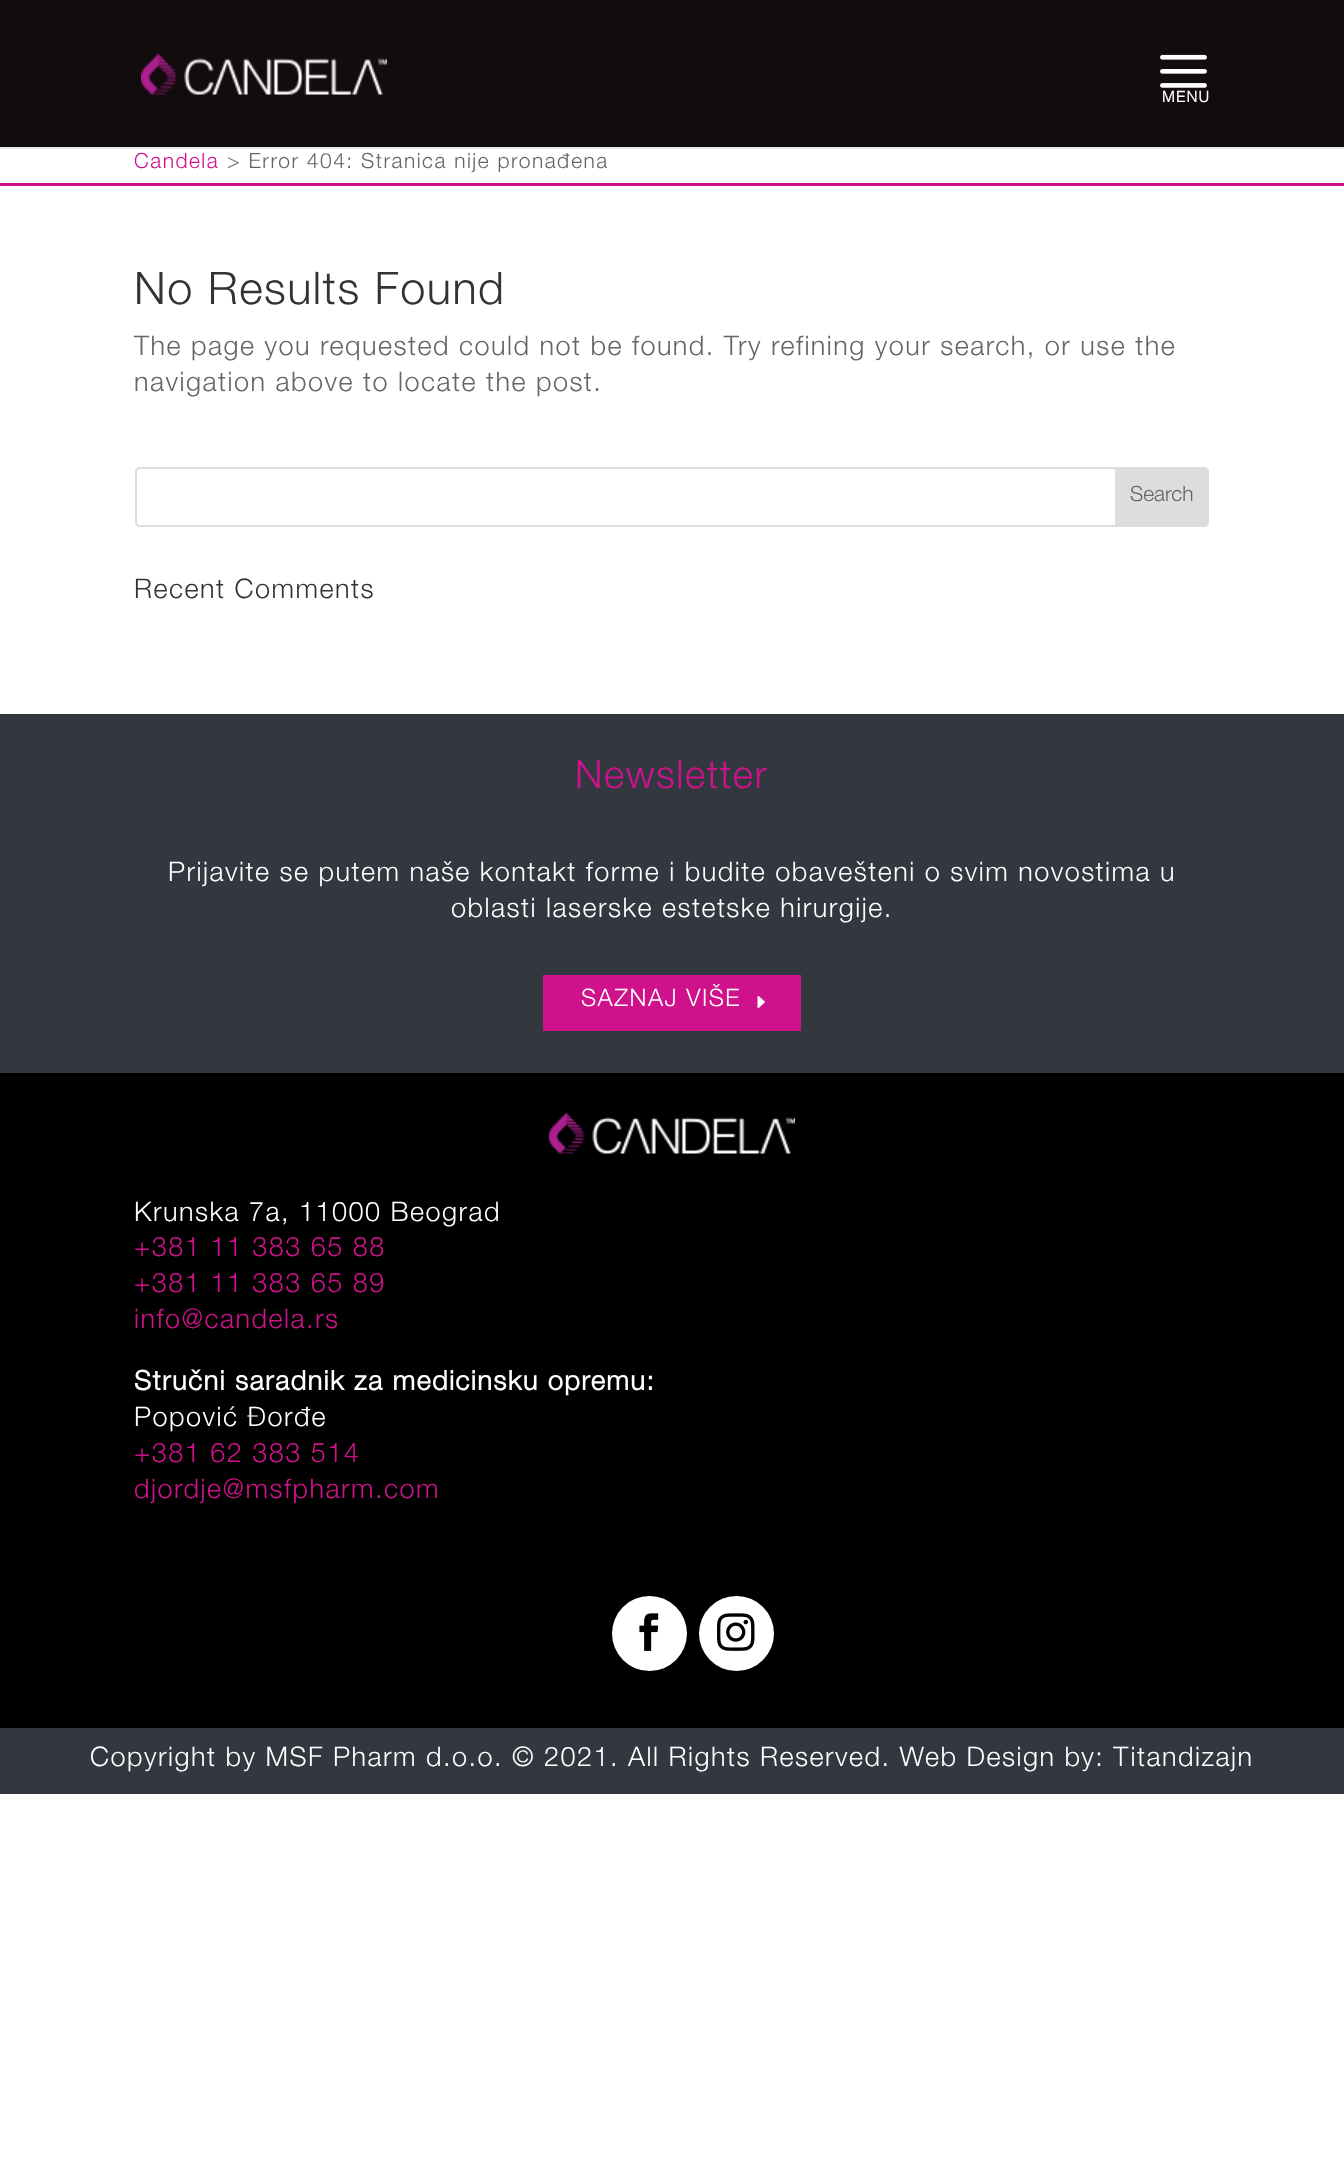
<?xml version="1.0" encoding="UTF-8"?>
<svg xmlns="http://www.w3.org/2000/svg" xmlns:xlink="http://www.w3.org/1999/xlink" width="1344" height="2161">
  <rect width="100%" height="100%" fill="#ffffff" />
  <rect y="147" width="1344" height="2" fill="#e6e6e6" />
  <rect width="1344" height="147" fill="#130c0e" />
  <image x="141" y="53" width="246" height="42" xlink:href="image1.png" />
  <image x="1160" y="54" width="47" height="34" xlink:href="image2.png" />
  <rect y="183" width="1344" height="3" fill="#cf128c" />
  <rect x="136" y="468" width="1072" height="58" rx="4" fill="none" stroke="#dddddd" stroke-width="2" />
  <path d="M 1116 468 h 88 c 2 0 4 2 4 4 v 50 c 0 2 -2 4 -4 4 h -88 z" fill="#dddddd" stroke="#dddddd" stroke-width="2" />
  <rect y="714" width="1344" height="359" fill="#333840" />
  <rect x="543" y="975" width="258" height="56" fill="#cf128c" />
  <image x="757" y="996" width="8" height="12" xlink:href="image3.png" />
  <rect y="1073" width="1344" height="655" fill="#000000" />
  <image x="549" y="1113" width="246" height="41" xlink:href="image4.png" />
  <circle cx="649.5" cy="1633.5" r="37.5" fill="#ffffff" />
  <image x="639" y="1613" width="20" height="38" xlink:href="image5.png" />
  <circle cx="736.5" cy="1633.5" r="37.5" fill="#ffffff" />
  <image x="717" y="1613" width="38" height="38" xlink:href="image6.png" />
  <rect y="1728" width="1344" height="66" fill="#333840" />
  <text x="1162" y="102" style="font-family: Helvetica Neue; font-size: 15px; font-weight: bold; letter-spacing: 1.5px; fill: #ffffff">MENU</text>
  <text x="134" y="168" style="font-family: Helvetica Neue; font-size: 21px; font-weight: 300; letter-spacing: 1.5px; fill: #cf128c">Candela</text>
  <text x="227" y="168" style="font-family: Helvetica Neue; font-size: 21px; font-weight: 300; letter-spacing: 1.5px; fill: #666666">&gt; Error 404: Stranica nije pronađena</text>
  <text x="134" y="304" style="font-family: Helvetica Neue; font-size: 45px; font-weight: 300; letter-spacing: 1.5px; fill: #333333">No Results Found</text>
  <text x="134" y="355" style="font-family: Helvetica Neue; font-size: 27px; font-weight: 300; letter-spacing: 1.5px; fill: #666666">The page you requested could not be found. Try refining your search, or use the</text>
  <text x="134" y="391" style="font-family: Helvetica Neue; font-size: 27px; font-weight: 300; letter-spacing: 1.5px; fill: #666666">navigation above to locate the post.</text>
  <text x="1130" y="501" style="font-family: Helvetica Neue; font-size: 21px; font-weight: 300; fill: #666666">Search</text>
  <text x="134" y="598" style="font-family: Helvetica Neue; font-size: 27px; font-weight: 300; letter-spacing: 1.5px; fill: #333333">Recent Comments</text>
  <text x="575" y="788" style="font-family: Helvetica Neue; font-size: 39px; font-weight: 300; letter-spacing: 1.5px; fill: #cf128c">Newsletter</text>
  <text x="168" y="881" style="font-family: Helvetica Neue; font-size: 27px; font-weight: 300; letter-spacing: 1.5px; fill: #ffffff">Prijavite se putem naše kontakt forme i budite obavešteni o svim novostima u</text>
  <text x="451" y="917" style="font-family: Helvetica Neue; font-size: 27px; font-weight: 300; letter-spacing: 1.5px; fill: #ffffff">oblasti laserske estetske hirurgije.</text>
  <text x="581" y="1006" style="font-family: Helvetica Neue; font-size: 24px; font-weight: 300; letter-spacing: 1.5px; fill: #ffffff">SAZNAJ VIŠE</text>
  <text x="134" y="1221" style="font-family: Helvetica Neue; font-size: 27px; font-weight: 300; letter-spacing: 1.5px; fill: #ffffff">Krunska 7a, 11000 Beograd</text>
  <text x="134" y="1256" style="font-family: Helvetica Neue; font-size: 27px; font-weight: 300; letter-spacing: 1.5px; fill: #cf128c">+381 11 383 65 88</text>
  <text x="134" y="1292" style="font-family: Helvetica Neue; font-size: 27px; font-weight: 300; letter-spacing: 1.5px; fill: #cf128c">+381 11 383 65 89</text>
  <text x="134" y="1328" style="font-family: Helvetica Neue; font-size: 27px; font-weight: 300; letter-spacing: 1.5px; fill: #cf128c">info@candela.rs</text>
  <text x="134" y="1390" style="font-family: Helvetica Neue; font-size: 27px; font-weight: bold; letter-spacing: 1.5px; fill: #ffffff">Stručni saradnik za medicinsku opremu:</text>
  <text x="134" y="1426" style="font-family: Helvetica Neue; font-size: 27px; font-weight: 300; letter-spacing: 1.5px; fill: #ffffff">Popović Đorđe</text>
  <text x="134" y="1462" style="font-family: Helvetica Neue; font-size: 27px; font-weight: 300; letter-spacing: 1.5px; fill: #cf128c">+381 62 383 514</text>
  <text x="134" y="1498" style="font-family: Helvetica Neue; font-size: 27px; font-weight: 300; letter-spacing: 1.5px; fill: #cf128c">djordje@msfpharm.com</text>
  <text x="90" y="1766" style="font-family: Helvetica Neue; font-size: 27px; font-weight: 300; letter-spacing: 1.5px; fill: #ffffff">Copyright by MSF Pharm d.o.o. © 2021. All Rights Reserved. Web Design by: Titandizajn</text>
</svg>
